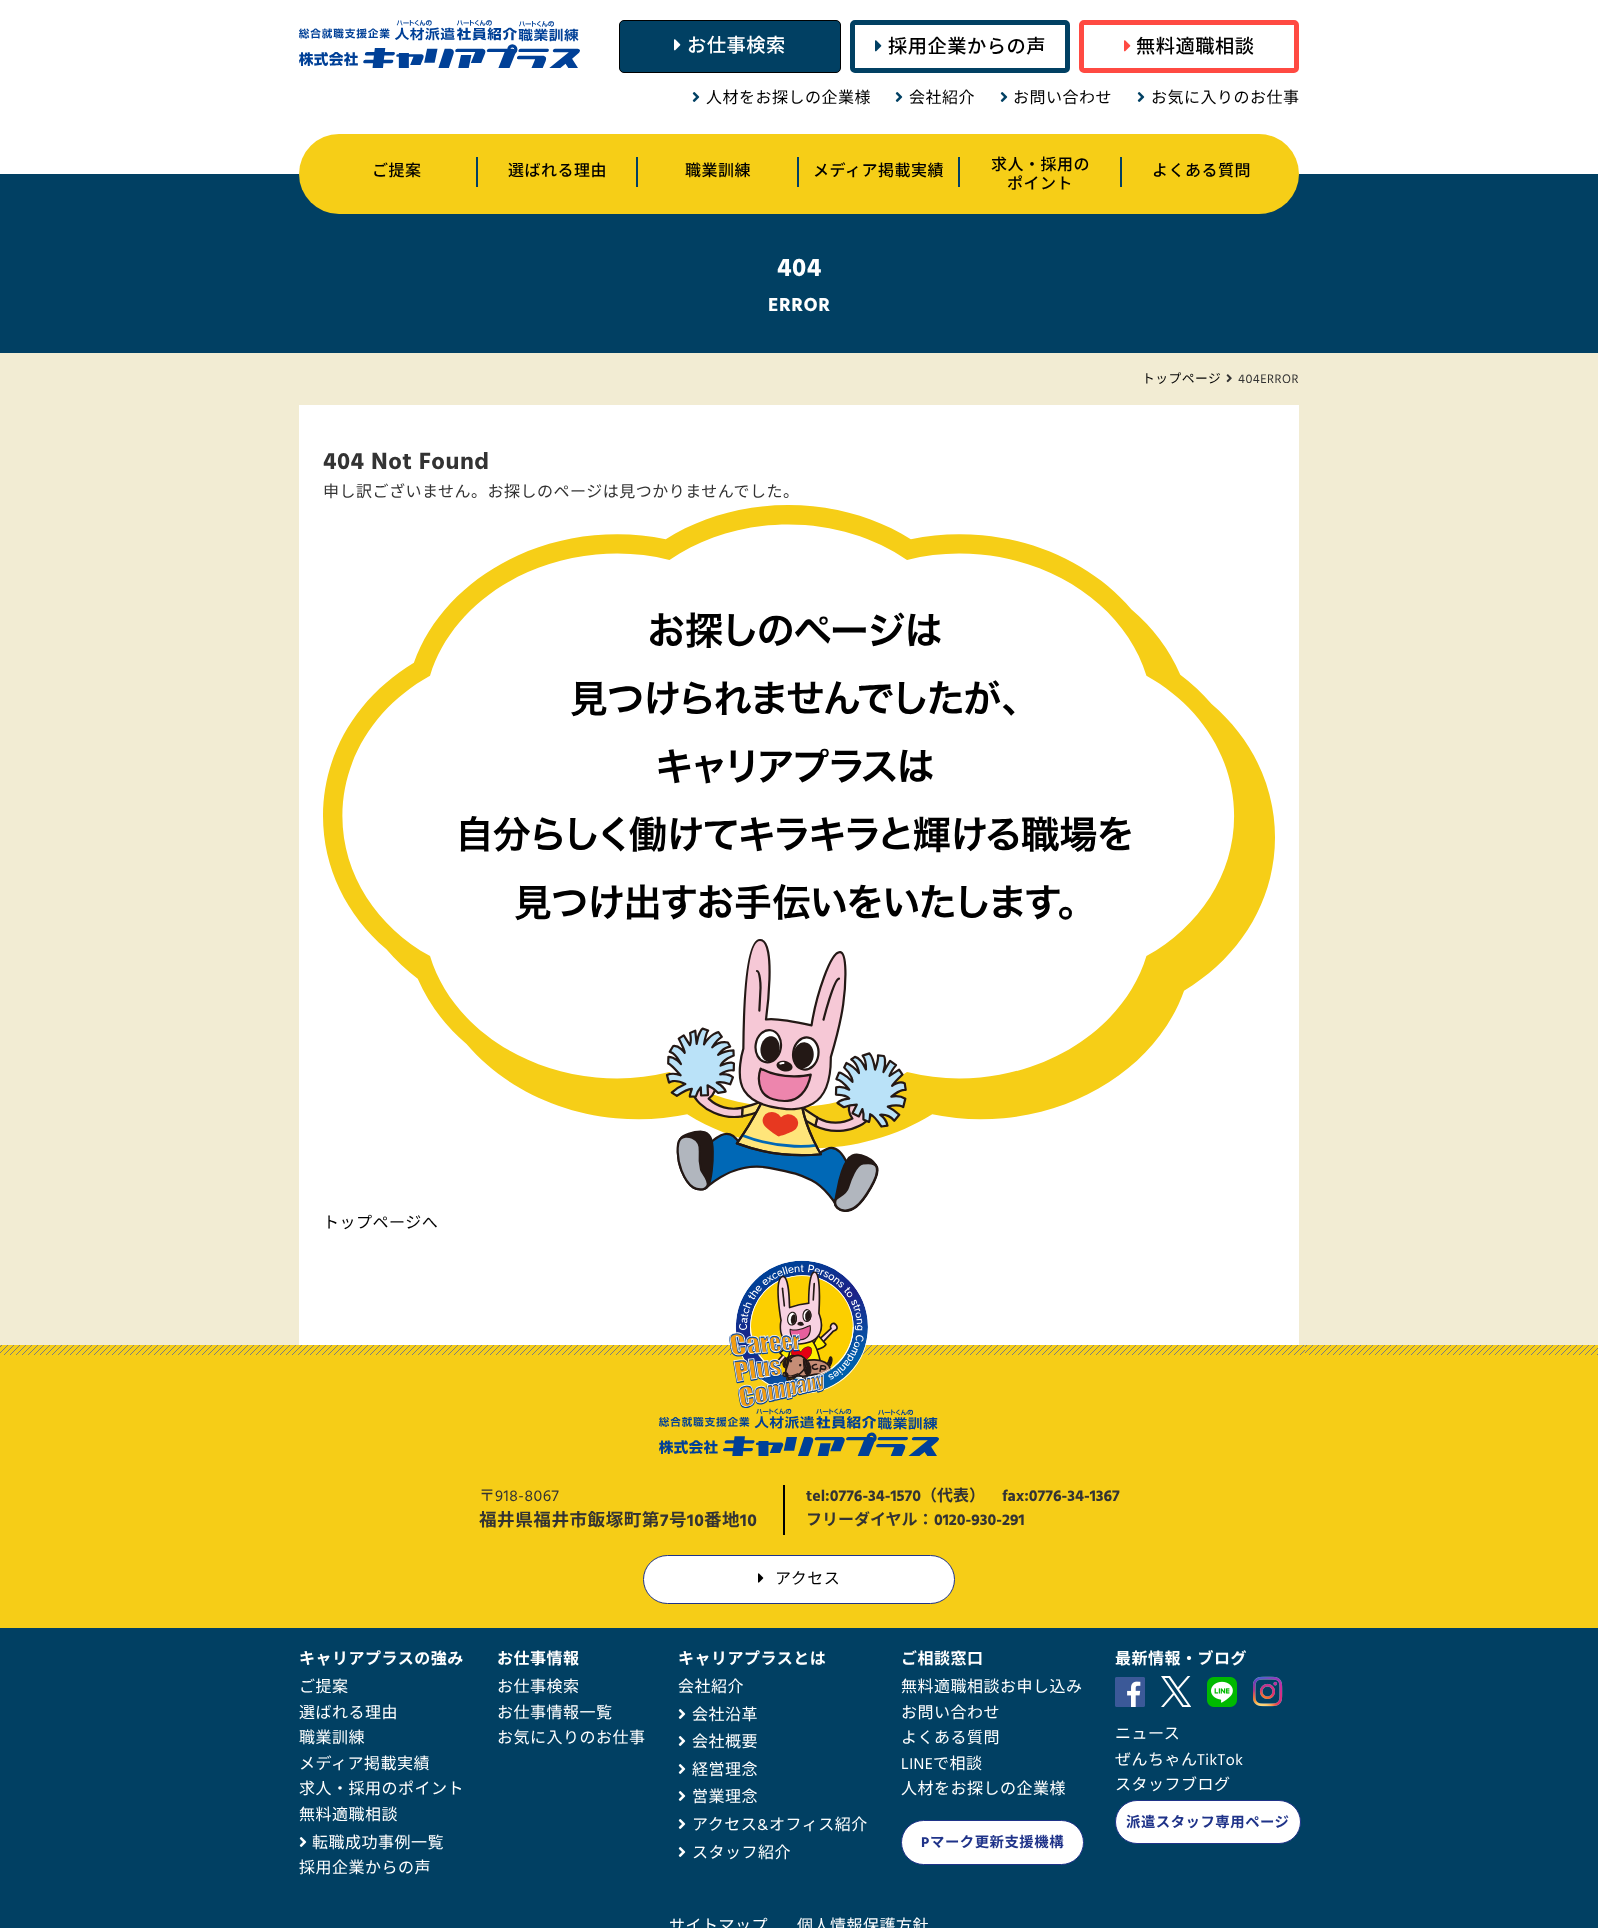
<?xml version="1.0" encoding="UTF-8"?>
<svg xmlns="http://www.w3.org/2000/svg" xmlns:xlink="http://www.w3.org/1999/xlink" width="1598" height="1928">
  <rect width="100%" height="100%" fill="#ffffff" />
  <image x="299" y="20" width="281" height="48" xlink:href="image1.png" />
  <rect x="619.5" y="20.5" width="221" height="52" rx="4.5" fill="#014063" stroke="#000000" />
  <image x="674" y="39" width="7" height="12" xlink:href="image2.png" />
  <rect x="852.5" y="22.5" width="215" height="48" rx="2.5" fill="none" stroke="#014063" stroke-width="5" />
  <image x="875" y="40" width="7" height="12" xlink:href="image3.png" />
  <rect x="1081.5" y="22.5" width="215" height="48" rx="2.5" fill="none" stroke="#ff4a42" stroke-width="5" />
  <image x="1124" y="40" width="7" height="12" xlink:href="image4.png" />
  <image x="692" y="92" width="8" height="10" xlink:href="image5.png" />
  <image x="895" y="92" width="8" height="10" xlink:href="image5.png" />
  <image x="1000" y="92" width="8" height="10" xlink:href="image5.png" />
  <image x="1137" y="92" width="8" height="10" xlink:href="image5.png" />
  <rect y="174" width="1598" height="179" fill="#014063" />
  <rect x="299" y="134" width="1000" height="80" rx="40" fill="#f6ce17" />
  <rect x="476" y="157" width="2" height="30" fill="#014063" />
  <rect x="636" y="157" width="2" height="30" fill="#014063" />
  <rect x="797" y="157" width="2" height="30" fill="#014063" />
  <rect x="958" y="157" width="2" height="30" fill="#014063" />
  <rect x="1120" y="157" width="2" height="30" fill="#014063" />
  <rect y="353" width="1598" height="992" fill="#f2ecd3" />
  <image x="1226" y="374" width="6" height="9" xlink:href="image6.png" />
  <rect x="299" y="405" width="1000" height="940" fill="#ffffff" />
  <image x="323" y="505" width="952" height="707" xlink:href="image7.png" />
  <rect y="1345" width="1598" height="283" fill="#f6cd17" />
  <image x="0" y="1345" width="1598" height="10" xlink:href="image9.png" />
  <image x="659" y="1260" width="280" height="196" xlink:href="image8.png" />
  <rect x="783" y="1485" width="2" height="50" fill="#000000" />
  <rect x="643.5" y="1555.5" width="311" height="48" rx="24" fill="#ffffff" stroke="#1f3389" />
  <image x="758" y="1573" width="6" height="10" xlink:href="image10.png" />
  <rect y="1628" width="1598" height="300" fill="#014063" />
  <image x="299" y="1837" width="8" height="10" xlink:href="image11.png" />
  <image x="678" y="1709" width="8" height="10" xlink:href="image11.png" />
  <image x="678" y="1736" width="8" height="10" xlink:href="image11.png" />
  <image x="678" y="1764" width="8" height="10" xlink:href="image11.png" />
  <image x="678" y="1791" width="8" height="10" xlink:href="image11.png" />
  <image x="678" y="1819" width="8" height="10" xlink:href="image11.png" />
  <image x="678" y="1847" width="8" height="10" xlink:href="image11.png" />
  <rect x="901.5" y="1820.5" width="182" height="44" rx="22" fill="#ffffff" stroke="#1f3389" />
  <image x="1115" y="1677" width="30" height="30" xlink:href="image12.png" />
  <image x="1161" y="1676" width="30" height="31" xlink:href="image13.png" />
  <image x="1207" y="1677" width="30" height="30" xlink:href="image14.png" />
  <image x="1253" y="1676" width="30" height="31" xlink:href="image15.png" />
  <rect x="1115.5" y="1800.5" width="185" height="43" rx="21.5" fill="#ffffff" stroke="#1f3389" />
  <text x="687" y="52" style="font-family: Noto Sans JP; font-size: 19.25px; font-weight: 500; letter-spacing: 0.5px; fill: #ffffff">お仕事検索</text>
  <text x="888" y="53" style="font-family: Noto Sans JP; font-size: 19.25px; font-weight: 500; letter-spacing: 0.5px; fill: #000000">採用企業からの声</text>
  <text x="1136" y="53" style="font-family: Noto Sans JP; font-size: 19.25px; font-weight: 500; letter-spacing: 0.5px; fill: #000000">無料適職相談</text>
  <text x="706" y="103" style="font-family: Noto Sans JP; font-size: 16px; letter-spacing: 0.5px; fill: #000000">人材をお探しの企業様</text>
  <text x="909" y="103" style="font-family: Noto Sans JP; font-size: 16px; letter-spacing: 0.5px; fill: #000000">会社紹介</text>
  <text x="1013" y="103" style="font-family: Noto Sans JP; font-size: 16px; letter-spacing: 0.5px; fill: #000000">お問い合わせ</text>
  <text x="1151" y="103" style="font-family: Noto Sans JP; font-size: 16px; letter-spacing: 0.5px; fill: #000000">お気に入りのお仕事</text>
  <text x="372" y="176" style="font-family: Noto Sans JP; font-size: 16px; font-weight: 500; letter-spacing: 0.5px; fill: #000000">ご提案</text>
  <text x="508" y="176" style="font-family: Noto Sans JP; font-size: 16px; font-weight: 500; letter-spacing: 0.5px; fill: #000000">選ばれる理由</text>
  <text x="685" y="176" style="font-family: Noto Sans JP; font-size: 16px; font-weight: 500; letter-spacing: 0.5px; fill: #000000">職業訓練</text>
  <text x="813" y="176" style="font-family: Noto Sans JP; font-size: 16px; font-weight: 500; letter-spacing: 0.5px; fill: #000000">メディア掲載実績</text>
  <text x="991" y="170" style="font-family: Noto Sans JP; font-size: 16px; font-weight: 500; letter-spacing: 0.5px; fill: #000000">求人・採用の</text>
  <text x="1007" y="189" style="font-family: Noto Sans JP; font-size: 16px; font-weight: 500; letter-spacing: 0.5px; fill: #000000">ポイント</text>
  <text x="1152" y="176" style="font-family: Noto Sans JP; font-size: 16px; font-weight: 500; letter-spacing: 0.5px; fill: #000000">よくある質問</text>
  <text x="777" y="276" style="font-family: Hind; font-size: 26px; font-weight: bold; letter-spacing: 0.5px; fill: #ffffff">404</text>
  <text x="768" y="311" style="font-family: Hind; font-size: 19.25px; font-weight: bold; letter-spacing: 0.5px; fill: #ffffff">ERROR</text>
  <text x="1142" y="383" style="font-family: Noto Sans JP; font-size: 12.75px; letter-spacing: 0.5px; fill: #000000">トップページ</text>
  <text x="1238" y="383" style="font-family: Hind; font-size: 12.75px; letter-spacing: 0.5px; fill: #333333">404ERROR</text>
  <text x="323" y="469" style="font-family: Hind; font-size: 24px; font-weight: bold; letter-spacing: 0.5px; fill: #333333">404 Not Found</text>
  <text x="323" y="497" style="font-family: Noto Sans JP; font-size: 16px; letter-spacing: 0.5px; fill: #333333">申し訳ございません。お探しのページは見つかりませんでした。</text>
  <text x="323" y="1228" style="font-family: Noto Sans JP; font-size: 16px; letter-spacing: 0.5px; fill: #000000">トップページへ</text>
  <text x="479" y="1501" style="font-family: Noto Sans JP; font-size: 16px; letter-spacing: 0.5px; fill: #333333">〒</text>
  <text x="495" y="1501" style="font-family: Hind; font-size: 16px; letter-spacing: 0.5px; fill: #333333">918-8067</text>
  <text x="479" y="1526" style="font-family: Noto Sans JP; font-size: 17.6px; font-weight: bold; letter-spacing: 0.5px; fill: #333333">福井県福井市飯塚町第</text>
  <text x="660" y="1526" style="font-family: Hind; font-size: 17.6px; font-weight: bold; letter-spacing: 0.5px; fill: #333333">7</text>
  <text x="669" y="1526" style="font-family: Noto Sans JP; font-size: 17.6px; font-weight: bold; letter-spacing: 0.5px; fill: #333333">号</text>
  <text x="687" y="1526" style="font-family: Hind; font-size: 17.6px; font-weight: bold; letter-spacing: 0.5px; fill: #333333">10</text>
  <text x="704" y="1526" style="font-family: Noto Sans JP; font-size: 17.6px; font-weight: bold; letter-spacing: 0.5px; fill: #333333">番地</text>
  <text x="740" y="1526" style="font-family: Hind; font-size: 17.6px; font-weight: bold; letter-spacing: 0.5px; fill: #333333">10</text>
  <text x="806" y="1501" style="font-family: Hind; font-size: 16px; font-weight: bold; fill: #333333">tel:0776-34-1570</text>
  <text x="921" y="1501" style="font-family: Noto Sans JP; font-size: 16px; font-weight: bold; fill: #333333">（代表）</text>
  <text x="1002" y="1501" style="font-family: Hind; font-size: 16px; font-weight: bold; fill: #333333">fax:0776-34-1367</text>
  <text x="806" y="1525" style="font-family: Noto Sans JP; font-size: 16px; font-weight: bold; fill: #333333">フリーダイヤル：</text>
  <text x="934" y="1525" style="font-family: Hind; font-size: 16px; font-weight: bold; fill: #333333">0120-930-291</text>
  <text x="775" y="1584" style="font-family: Noto Sans JP; font-size: 16px; letter-spacing: 0.5px; fill: #000000">アクセス</text>
  <text x="299" y="1664" style="font-family: Noto Sans JP; font-size: 16px; font-weight: bold; letter-spacing: 0.5px; fill: #ffffff">キャリアプラスの強み</text>
  <text x="299" y="1692" style="font-family: Noto Sans JP; font-size: 16px; letter-spacing: 0.5px; fill: #ffffff">ご提案</text>
  <text x="299" y="1718" style="font-family: Noto Sans JP; font-size: 16px; letter-spacing: 0.5px; fill: #ffffff">選ばれる理由</text>
  <text x="299" y="1743" style="font-family: Noto Sans JP; font-size: 16px; letter-spacing: 0.5px; fill: #ffffff">職業訓練</text>
  <text x="299" y="1769" style="font-family: Noto Sans JP; font-size: 16px; letter-spacing: 0.5px; fill: #ffffff">メディア掲載実績</text>
  <text x="299" y="1794" style="font-family: Noto Sans JP; font-size: 16px; letter-spacing: 0.5px; fill: #ffffff">求人・採用のポイント</text>
  <text x="299" y="1820" style="font-family: Noto Sans JP; font-size: 16px; letter-spacing: 0.5px; fill: #ffffff">無料適職相談</text>
  <text x="312" y="1848" style="font-family: Noto Sans JP; font-size: 16px; letter-spacing: 0.5px; fill: #ffffff">転職成功事例一覧</text>
  <text x="299" y="1873" style="font-family: Noto Sans JP; font-size: 16px; letter-spacing: 0.5px; fill: #ffffff">採用企業からの声</text>
  <text x="497" y="1664" style="font-family: Noto Sans JP; font-size: 16px; font-weight: bold; letter-spacing: 0.5px; fill: #ffffff">お仕事情報</text>
  <text x="497" y="1692" style="font-family: Noto Sans JP; font-size: 16px; letter-spacing: 0.5px; fill: #ffffff">お仕事検索</text>
  <text x="497" y="1718" style="font-family: Noto Sans JP; font-size: 16px; letter-spacing: 0.5px; fill: #ffffff">お仕事情報一覧</text>
  <text x="497" y="1743" style="font-family: Noto Sans JP; font-size: 16px; letter-spacing: 0.5px; fill: #ffffff">お気に入りのお仕事</text>
  <text x="678" y="1664" style="font-family: Noto Sans JP; font-size: 16px; font-weight: bold; letter-spacing: 0.5px; fill: #ffffff">キャリアプラスとは</text>
  <text x="678" y="1692" style="font-family: Noto Sans JP; font-size: 16px; letter-spacing: 0.5px; fill: #ffffff">会社紹介</text>
  <text x="692" y="1720" style="font-family: Noto Sans JP; font-size: 16px; letter-spacing: 0.5px; fill: #ffffff">会社沿革</text>
  <text x="692" y="1747" style="font-family: Noto Sans JP; font-size: 16px; letter-spacing: 0.5px; fill: #ffffff">会社概要</text>
  <text x="692" y="1775" style="font-family: Noto Sans JP; font-size: 16px; letter-spacing: 0.5px; fill: #ffffff">経営理念</text>
  <text x="692" y="1802" style="font-family: Noto Sans JP; font-size: 16px; letter-spacing: 0.5px; fill: #ffffff">営業理念</text>
  <text x="692" y="1830" style="font-family: Noto Sans JP; font-size: 16px; letter-spacing: 0.5px; fill: #ffffff">アクセス</text>
  <text x="757" y="1830" style="font-family: Hind; font-size: 16px; letter-spacing: 0.5px; fill: #ffffff">&amp;</text>
  <text x="769" y="1830" style="font-family: Noto Sans JP; font-size: 16px; letter-spacing: 0.5px; fill: #ffffff">オフィス紹介</text>
  <text x="692" y="1858" style="font-family: Noto Sans JP; font-size: 16px; letter-spacing: 0.5px; fill: #ffffff">スタッフ紹介</text>
  <text x="901" y="1664" style="font-family: Noto Sans JP; font-size: 16px; font-weight: bold; letter-spacing: 0.5px; fill: #ffffff">ご相談窓口</text>
  <text x="901" y="1692" style="font-family: Noto Sans JP; font-size: 16px; letter-spacing: 0.5px; fill: #ffffff">無料適職相談お申し込み</text>
  <text x="901" y="1718" style="font-family: Noto Sans JP; font-size: 16px; letter-spacing: 0.5px; fill: #ffffff">お問い合わせ</text>
  <text x="901" y="1743" style="font-family: Noto Sans JP; font-size: 16px; letter-spacing: 0.5px; fill: #ffffff">よくある質問</text>
  <text x="901" y="1769" style="font-family: Hind; font-size: 16px; letter-spacing: 0.5px; fill: #ffffff">LINE</text>
  <text x="933" y="1769" style="font-family: Noto Sans JP; font-size: 16px; letter-spacing: 0.5px; fill: #ffffff">で相談</text>
  <text x="901" y="1794" style="font-family: Noto Sans JP; font-size: 16px; letter-spacing: 0.5px; fill: #ffffff">人材をお探しの企業様</text>
  <text x="921" y="1847" style="font-family: Hind; font-size: 14.4px; font-weight: bold; letter-spacing: 0.5px; fill: #1f3389">P</text>
  <text x="930" y="1847" style="font-family: Noto Sans JP; font-size: 14.4px; font-weight: bold; letter-spacing: 0.5px; fill: #1f3389">マーク更新支援機構</text>
  <text x="1115" y="1664" style="font-family: Noto Sans JP; font-size: 16px; font-weight: bold; letter-spacing: 0.5px; fill: #ffffff">最新情報・ブログ</text>
  <text x="1115" y="1739" style="font-family: Noto Sans JP; font-size: 16px; letter-spacing: 0.5px; fill: #ffffff">ニュース</text>
  <text x="1115" y="1765" style="font-family: Noto Sans JP; font-size: 16px; letter-spacing: 0.5px; fill: #ffffff">ぜんちゃん</text>
  <text x="1197" y="1765" style="font-family: Hind; font-size: 16px; letter-spacing: 0.5px; fill: #ffffff">TikTok</text>
  <text x="1115" y="1790" style="font-family: Noto Sans JP; font-size: 16px; letter-spacing: 0.5px; fill: #ffffff">スタッフブログ</text>
  <text x="1126" y="1827" style="font-family: Noto Sans JP; font-size: 14.4px; font-weight: bold; letter-spacing: 0.5px; fill: #1f3389">派遣スタッフ専用ページ</text>
  <text x="669" y="1931" style="font-family: Noto Sans JP; font-size: 16px; letter-spacing: 0.5px; fill: #ffffff">サイトマップ</text>
  <text x="797" y="1931" style="font-family: Noto Sans JP; font-size: 16px; letter-spacing: 0.5px; fill: #ffffff">個人情報保護方針</text>
</svg>
